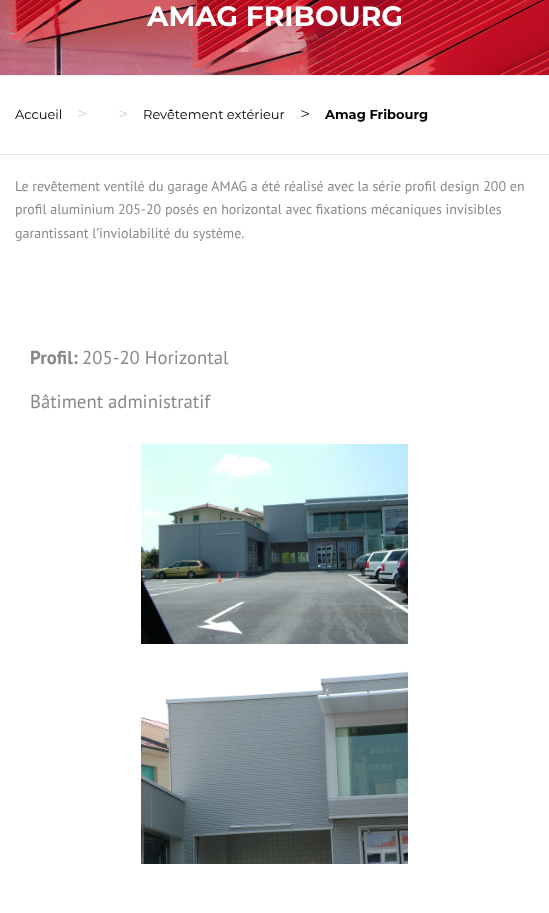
<?xml version="1.0" encoding="UTF-8"?>
<svg xmlns="http://www.w3.org/2000/svg" xmlns:xlink="http://www.w3.org/1999/xlink" width="549" height="913">
  <rect width="100%" height="100%" fill="#ffffff" />
  <image x="0" y="0" width="549" height="75" xlink:href="image1.png" />
  <rect y="75" width="549" height="1" fill="#eeeeee" />
  <rect y="154" width="549" height="1" fill="#e7e7e7" />
  <image x="141" y="444" width="267" height="200" xlink:href="image2.png" />
  <image x="141" y="671" width="267" height="193" xlink:href="image3.png" />
  <text x="147" y="26" style="font-family: Montserrat; font-size: 28px; font-weight: bold; fill: #ffffff">AMAG FRIBOURG</text>
  <text x="15" y="119" style="font-family: Montserrat; font-size: 13px; fill: #000000">Accueil</text>
  <text x="77" y="120" style="font-family: Montserrat; font-size: 18px; font-weight: 300; fill: #cccccc">&gt;</text>
  <text x="118" y="120" style="font-family: Montserrat; font-size: 18px; font-weight: 300; fill: #cccccc">&gt;</text>
  <text x="143" y="119" style="font-family: Montserrat; font-size: 13px; fill: #000000">Revêtement extérieur</text>
  <text x="300" y="120" style="font-family: Montserrat; font-size: 18px; font-weight: 300; fill: #000000">&gt;</text>
  <text x="325" y="119" style="font-family: Montserrat; font-size: 13px; font-weight: bold; fill: #000000">Amag Fribourg</text>
  <text x="15" y="191" style="font-family: PT Sans; font-size: 14px; fill: #898989">Le revêtement ventilé du garage AMAG a été réalisé avec la série profil design 200 en</text>
  <text x="15" y="214" style="font-family: PT Sans; font-size: 14px; fill: #898989">profil aluminium 205-20 posés en horizontal avec fixations mécaniques invisibles</text>
  <text x="15" y="238" style="font-family: PT Sans; font-size: 14px; fill: #898989">garantissant l’inviolabilité du système.</text>
  <text x="30" y="364" style="font-family: PT Sans; font-size: 18.75px; font-weight: bold; fill: #898989">Profil:</text>
  <text x="82" y="364" style="font-family: PT Sans; font-size: 18.75px; fill: #898989">205-20 Horizontal</text>
  <text x="30" y="408" style="font-family: PT Sans; font-size: 18.75px; fill: #898989">Bâtiment administratif</text>
</svg>
